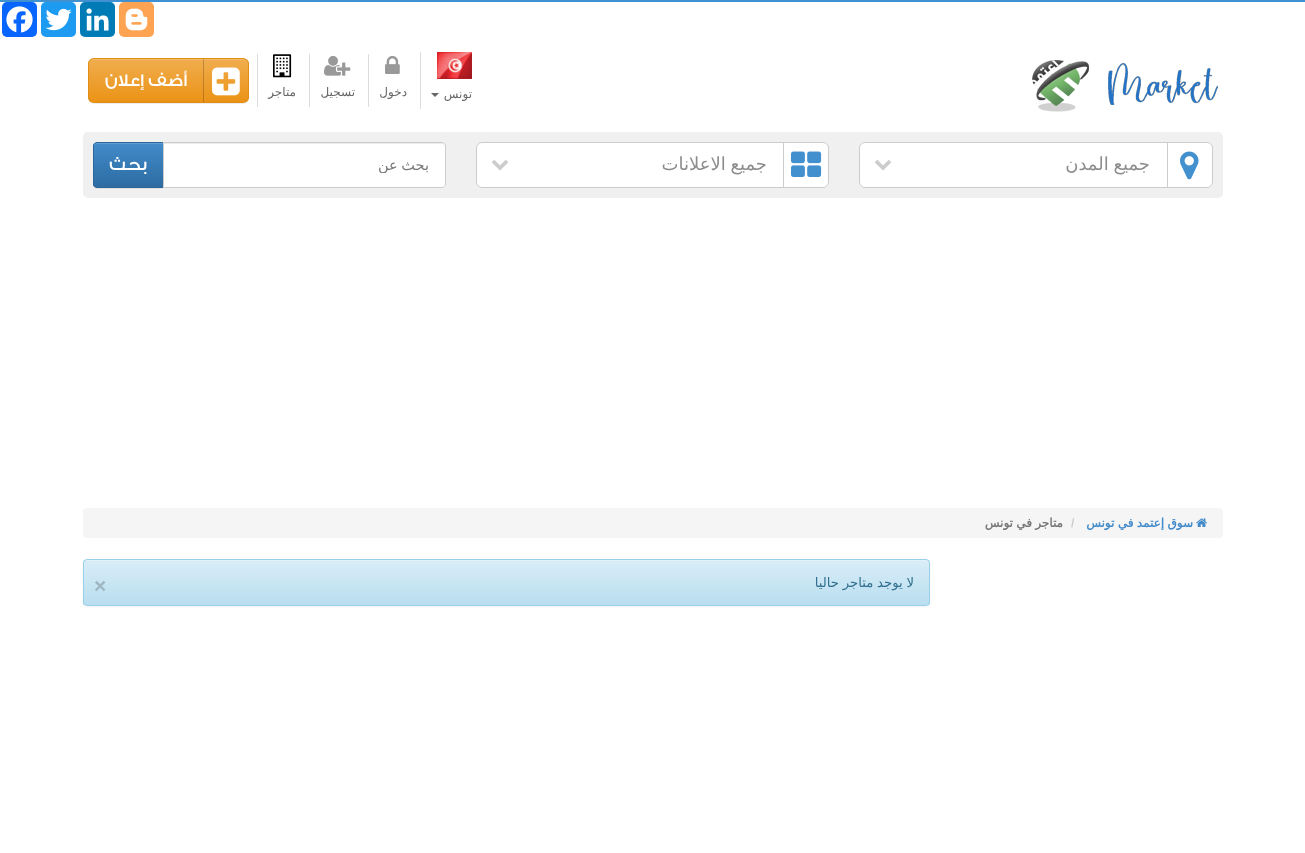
<?xml version="1.0" encoding="UTF-8"?>
<svg xmlns="http://www.w3.org/2000/svg" xmlns:xlink="http://www.w3.org/1999/xlink" width="1305" height="853">
  <defs>
    <clipPath id="clip1"><rect x="88" y="58" width="161" height="45" rx="6" /></clipPath>
    <linearGradient id="g1" gradientUnits="userSpaceOnUse" x1="169" y1="59" x2="169" y2="102"><stop offset="0" stop-color="#f0ad4e" /><stop offset="1" stop-color="#eb9316" /></linearGradient>
    <clipPath id="clip2"><path d="M 97 142 h 67 v 46 h -67 c -2 0 -4 -2 -4 -4 v -38 c 0 -2 2 -4 4 -4 z" /></clipPath>
    <linearGradient id="g2" gradientUnits="userSpaceOnUse" x1="129" y1="143" x2="129" y2="187"><stop offset="0" stop-color="#428bca" /><stop offset="1" stop-color="#2d6ca2" /></linearGradient>
    <clipPath id="clip3"><rect x="83" y="559" width="847" height="47" rx="4" /></clipPath>
    <linearGradient id="g3" gradientUnits="userSpaceOnUse" x1="507" y1="560" x2="507" y2="605"><stop offset="0" stop-color="#d9edf7" /><stop offset="1" stop-color="#b9def0" /></linearGradient>
    <clipPath id="clip4"><rect x="180" y="157" width="249" height="16" /></clipPath>
  </defs>
  <rect width="100%" height="100%" fill="#ffffff" />
  <rect width="1305" height="2" fill="#4091d2" />
  <rect x="119" y="2" width="35" height="35" rx="5" fill="#fda352" />
  <image x="125" y="8" width="23" height="23" xlink:href="image1.png" />
  <rect x="80" y="2" width="35" height="35" rx="5" fill="#007bb5" />
  <image x="86" y="8" width="23" height="23" xlink:href="image2.png" />
  <rect x="41" y="2" width="35" height="35" rx="5" fill="#1d9bf0" />
  <image x="45" y="8" width="27" height="23" xlink:href="image3.png" />
  <rect x="2" y="2" width="35" height="35" rx="5" fill="#0866ff" />
  <image x="6" y="6" width="27" height="27" xlink:href="image4.png" />
  <image x="1032" y="60" width="186" height="52" xlink:href="image5.png" />
  <rect x="88" y="59" width="161" height="45" rx="6" fill="#000000" fill-opacity="0.07" filter="blur(0.5px)" />
  <g clip-path="url(#clip1)">
    <rect x="88" y="59" width="161" height="43" fill="url(#g1)" />
  </g>
  <path d="M 94 60 h 149 c 3 0 5 2 5 5 v -1 c 0 -3 -2 -5 -5 -5 h -149 c -3 0 -5 2 -5 5 v 1 c 0 -3 2 -5 5 -5 z" fill="#f2b968" />
  <rect x="88.5" y="58.5" width="160" height="44" rx="5.5" fill="none" stroke="#e38d13" />
  <rect x="203" y="59" width="1" height="43" fill="#000000" fill-opacity="0.2" />
  <image x="212" y="67" width="28" height="29" xlink:href="image6.png" />
  <rect x="420" y="52" width="1" height="57" fill="#dcdcdc" />
  <image x="437" y="52" width="35" height="27" xlink:href="image7.png" />
  <path d="M 431 93 h 8 l -4 4 z" fill="#666666" />
  <rect x="368" y="54" width="1" height="53" fill="#dcdcdc" />
  <image x="385" y="55" width="15" height="19" xlink:href="image8.png" />
  <rect x="309" y="54" width="1" height="53" fill="#dcdcdc" />
  <image x="324" y="56" width="27" height="20" xlink:href="image9.png" />
  <rect x="257" y="54" width="1" height="53" fill="#dcdcdc" />
  <image x="273" y="54" width="19" height="24" xlink:href="image10.png" />
  <rect x="83" y="132" width="1140" height="66" rx="5" fill="#f0f0f0" />
  <rect x="859" y="142" width="354" height="46" rx="6" fill="#ffffff" />
  <rect x="859.5" y="142.5" width="353" height="45" rx="5.5" fill="none" stroke="#000000" stroke-opacity="0.2" />
  <rect x="1167" y="143" width="1" height="44" fill="#cccccc" />
  <image x="1180" y="151" width="19" height="29" xlink:href="image11.png" />
  <image x="875" y="160" width="16" height="11" xlink:href="image12.png" />
  <rect x="476" y="142" width="353" height="46" rx="6" fill="#ffffff" />
  <rect x="476.5" y="142.5" width="352" height="45" rx="5.5" fill="none" stroke="#000000" stroke-opacity="0.2" />
  <rect x="783" y="143" width="1" height="44" fill="#cccccc" />
  <image x="791" y="151" width="31" height="26" xlink:href="image13.png" />
  <image x="492" y="160" width="16" height="11" xlink:href="image12.png" />
  <rect x="93" y="143" width="71" height="46" rx="4" fill="#000000" fill-opacity="0.07" filter="blur(0.5px)" />
  <g clip-path="url(#clip2)">
    <rect x="93" y="143" width="70" height="44" fill="url(#g2)" />
  </g>
  <path d="M 97 144 h 66 v -1 h -66 c -2 0 -3 1 -3 3 v 1 c 0 -2 1 -3 3 -3 z" fill="#5e9cd2" />
  <path d="M 97 142.5 h 66.5 v 45 h -66.5 c -2 0 -3.5 -1.5 -3.5 -3.5 v -38 c 0 -2 1.5 -3.5 3.5 -3.5 z" fill="none" stroke="#2b669a" />
  <path d="M 163 142 h 279 c 2 0 4 2 4 4 v 38 c 0 2 -2 4 -4 4 h -279 z" fill="#ffffff" />
  <path d="M 164 144 h 278 c 2 0 3 1 3 3 v -1 c 0 -2 -1 -3 -3 -3 h -278 z" fill="#ececec" />
  <path d="M 163.5 142.5 h 278.5 c 2 0 3.5 1.5 3.5 3.5 v 38 c 0 2 -1.5 3.5 -3.5 3.5 h -278.5 z" fill="none" stroke="#cccccc" />
  <rect x="83" y="508" width="1140" height="30" rx="4" fill="#f5f5f5" />
  <image x="1196" y="518" width="11" height="9" xlink:href="image14.png" />
  <rect x="83" y="560" width="847" height="47" rx="4" fill="#000000" fill-opacity="0.05" filter="blur(1px)" />
  <g clip-path="url(#clip3)">
    <rect x="83" y="560" width="847" height="45" fill="url(#g3)" />
  </g>
  <path d="M 87 561 h 839 c 2 0 3 1 3 3 c 0 -2 -1 -4 -3 -4 h -839 c -2 0 -3 2 -3 4 c 0 -2 1 -3 3 -3 z" fill="#e3f2f9" />
  <rect x="83.5" y="559.5" width="846" height="46" rx="3.5" fill="none" stroke="#9acfea" />
  <text x="187" y="86" style="font-family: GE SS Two; font-size: 18px; font-weight: 500; direction: rtl; fill: #ffffff">أضف إعلان</text>
  <text x="472" y="98" style="font-family: DejaVu Sans; font-size: 12px; direction: rtl; fill: #666666">تونس</text>
  <text x="407" y="96" style="font-family: DejaVu Sans; font-size: 12px; direction: rtl; fill: #666666">دخول</text>
  <text x="355" y="96" style="font-family: DejaVu Sans; font-size: 12px; direction: rtl; fill: #666666">تسجيل</text>
  <text x="296" y="96" style="font-family: DejaVu Sans; font-size: 12px; direction: rtl; fill: #666666">متاجر</text>
  <text x="1150" y="170" word-spacing="-1" style="font-family: DejaVu Sans; font-size: 18px; direction: rtl; fill: #8c8c8c">جميع المدن</text>
  <text x="767" y="170" word-spacing="-1" style="font-family: DejaVu Sans; font-size: 18px; direction: rtl; fill: #8c8c8c">جميع الاعلانات</text>
  <g clip-path="url(#clip4)">
    <text x="429" y="170" word-spacing="-1" style="font-family: DejaVu Sans; font-size: 14.5px; direction: rtl; fill: #777777">بحث عن</text>
  </g>
  <text x="147" y="170" style="font-family: GE SS Two; font-size: 18px; font-weight: 500; direction: rtl; fill: #ffffff">بحث</text>
  <text x="1193" y="527" word-spacing="-0.5" style="font-family: DejaVu Sans; font-size: 12px; font-weight: bold; direction: rtl; fill: #428bca">سوق إعتمد في تونس</text>
  <text x="1071" y="527" style="font-family: Liberation Sans; font-size: 12px; font-weight: bold; fill: #cccccc">/</text>
  <text x="1063" y="527" style="font-family: DejaVu Sans; font-size: 12px; font-weight: bold; direction: rtl; fill: #777777">متاجر</text>
  <text x="1032" y="527" word-spacing="-0.5" style="font-family: DejaVu Sans; font-size: 12px; font-weight: bold; direction: rtl; fill: #777777">في تونس</text>
  <text x="914" y="587" word-spacing="-0.5" style="font-family: DejaVu Sans; font-size: 13.25px; direction: rtl; fill: #31708f">لا يوجد متاجر حاليا</text>
  <text x="94" y="593" style="font-family: Liberation Sans; font-size: 21px; font-weight: bold; fill: #9fb7c2">×</text>
</svg>
